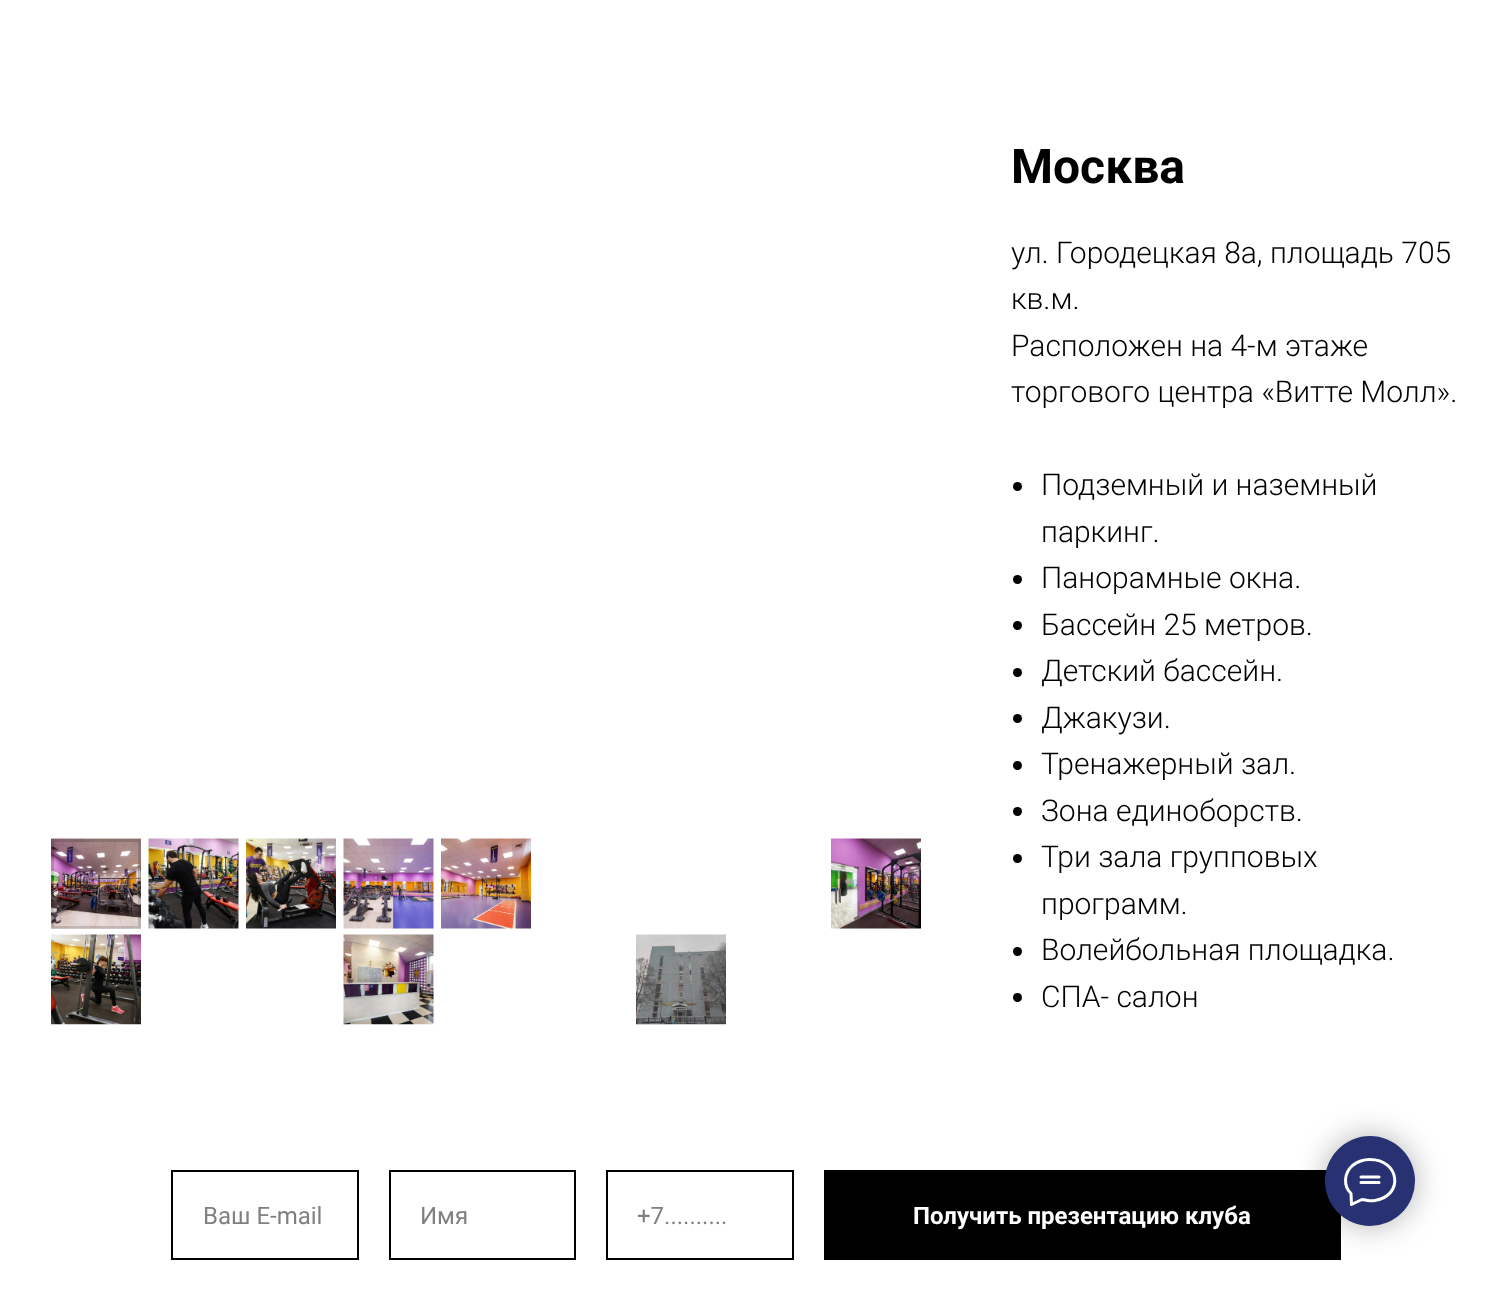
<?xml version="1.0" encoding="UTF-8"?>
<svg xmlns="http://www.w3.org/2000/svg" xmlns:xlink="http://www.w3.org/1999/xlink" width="1512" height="1300">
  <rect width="100%" height="100%" fill="#ffffff" />
  <image x="51" y="838" width="90" height="91" xlink:href="image1.png" />
  <rect x="52.5" y="840.5" width="87" height="87" fill="none" stroke="#000000" stroke-opacity="0.15" stroke-width="3" />
  <image x="148" y="838" width="91" height="91" xlink:href="image2.png" />
  <image x="246" y="838" width="90" height="91" xlink:href="image3.png" />
  <image x="343" y="838" width="91" height="91" xlink:href="image4.png" />
  <image x="441" y="838" width="90" height="91" xlink:href="image5.png" />
  <image x="831" y="838" width="90" height="91" xlink:href="image6.png" />
  <image x="51" y="934" width="90" height="91" xlink:href="image7.png" />
  <image x="343" y="934" width="91" height="91" xlink:href="image8.png" />
  <image x="636" y="934" width="90" height="91" xlink:href="image9.png" />
  <circle cx="1017.5" cy="486.5" r="4.5" fill="#000000" />
  <circle cx="1017.5" cy="579.5" r="4.5" fill="#000000" />
  <circle cx="1017.5" cy="625.5" r="4.5" fill="#000000" />
  <circle cx="1017.5" cy="672.5" r="4.5" fill="#000000" />
  <circle cx="1017.5" cy="718.5" r="4.5" fill="#000000" />
  <circle cx="1017.5" cy="765.5" r="4.5" fill="#000000" />
  <circle cx="1017.5" cy="811.5" r="4.5" fill="#000000" />
  <circle cx="1017.5" cy="858.5" r="4.5" fill="#000000" />
  <circle cx="1017.5" cy="951.5" r="4.5" fill="#000000" />
  <circle cx="1017.5" cy="997.5" r="4.5" fill="#000000" />
  <rect x="172" y="1171" width="186" height="88" fill="none" stroke="#000000" stroke-width="2" />
  <rect x="390" y="1171" width="185" height="88" fill="none" stroke="#000000" stroke-width="2" />
  <rect x="607" y="1171" width="186" height="88" fill="none" stroke="#000000" stroke-width="2" />
  <rect x="824" y="1170" width="517" height="90" fill="#000000" />
  <rect x="1325" y="1136" width="90" height="90" rx="45" fill="#000000" fill-opacity="0.3" filter="blur(15px)" />
  <circle cx="1370" cy="1181" r="45" fill="#283273" />
  <path d="M 1361 1177 h 18 m -18 5.5 h 18 m -28 11 c -8 -8 -7 -20.5 1.5 -28 c 5 -4 11.5 -6 17.5 -6 c 29.5 0 34.5 36 5 41 c -5 1 -8 -0.5 -13 -1 l -10.5 5 z" fill="none" stroke="#ffffff" stroke-width="3" stroke-linecap="round" stroke-linejoin="round" />
  <text x="1011" y="183" style="font-family: Roboto; font-size: 48px; font-weight: bold; fill: #000000">Москва</text>
  <text x="1011" y="263" style="font-family: Roboto; font-size: 30px; font-weight: 300; fill: #000000">ул. Городецкая 8а, площадь 705</text>
  <text x="1011" y="309" style="font-family: Roboto; font-size: 30px; font-weight: 300; fill: #000000">кв.м.</text>
  <text x="1011" y="356" style="font-family: Roboto; font-size: 30px; font-weight: 300; fill: #000000">Расположен на 4-м этаже</text>
  <text x="1011" y="402" style="font-family: Roboto; font-size: 30px; font-weight: 300; fill: #000000">торгового центра «Витте Молл».</text>
  <text x="1041" y="495" style="font-family: Roboto; font-size: 30px; font-weight: 300; fill: #000000">Подземный и наземный</text>
  <text x="1041" y="542" style="font-family: Roboto; font-size: 30px; font-weight: 300; fill: #000000">паркинг.</text>
  <text x="1041" y="588" style="font-family: Roboto; font-size: 30px; font-weight: 300; fill: #000000">Панорамные окна.</text>
  <text x="1041" y="635" style="font-family: Roboto; font-size: 30px; font-weight: 300; fill: #000000">Бассейн 25 метров.</text>
  <text x="1041" y="681" style="font-family: Roboto; font-size: 30px; font-weight: 300; fill: #000000">Детский бассейн.</text>
  <text x="1041" y="728" style="font-family: Roboto; font-size: 30px; font-weight: 300; fill: #000000">Джакузи.</text>
  <text x="1041" y="774" style="font-family: Roboto; font-size: 30px; font-weight: 300; fill: #000000">Тренажерный зал.</text>
  <text x="1041" y="821" style="font-family: Roboto; font-size: 30px; font-weight: 300; fill: #000000">Зона единоборств.</text>
  <text x="1041" y="867" style="font-family: Roboto; font-size: 30px; font-weight: 300; fill: #000000">Три зала групповых</text>
  <text x="1041" y="914" style="font-family: Roboto; font-size: 30px; font-weight: 300; fill: #000000">программ.</text>
  <text x="1041" y="960" style="font-family: Roboto; font-size: 30px; font-weight: 300; fill: #000000">Волейбольная площадка.</text>
  <text x="1041" y="1007" style="font-family: Roboto; font-size: 30px; font-weight: 300; fill: #000000">СПА- салон</text>
  <text x="203" y="1224" style="font-family: Roboto; font-size: 24px; fill: #808080">Ваш E-mail</text>
  <text x="420" y="1224" style="font-family: Roboto; font-size: 24px; fill: #808080">Имя</text>
  <text x="637" y="1224" style="font-family: Roboto; font-size: 24px; fill: #808080">+7..........</text>
  <text x="913" y="1224" style="font-family: Roboto; font-size: 24px; font-weight: bold; fill: #ffffff">Получить презентацию клуба</text>
</svg>
